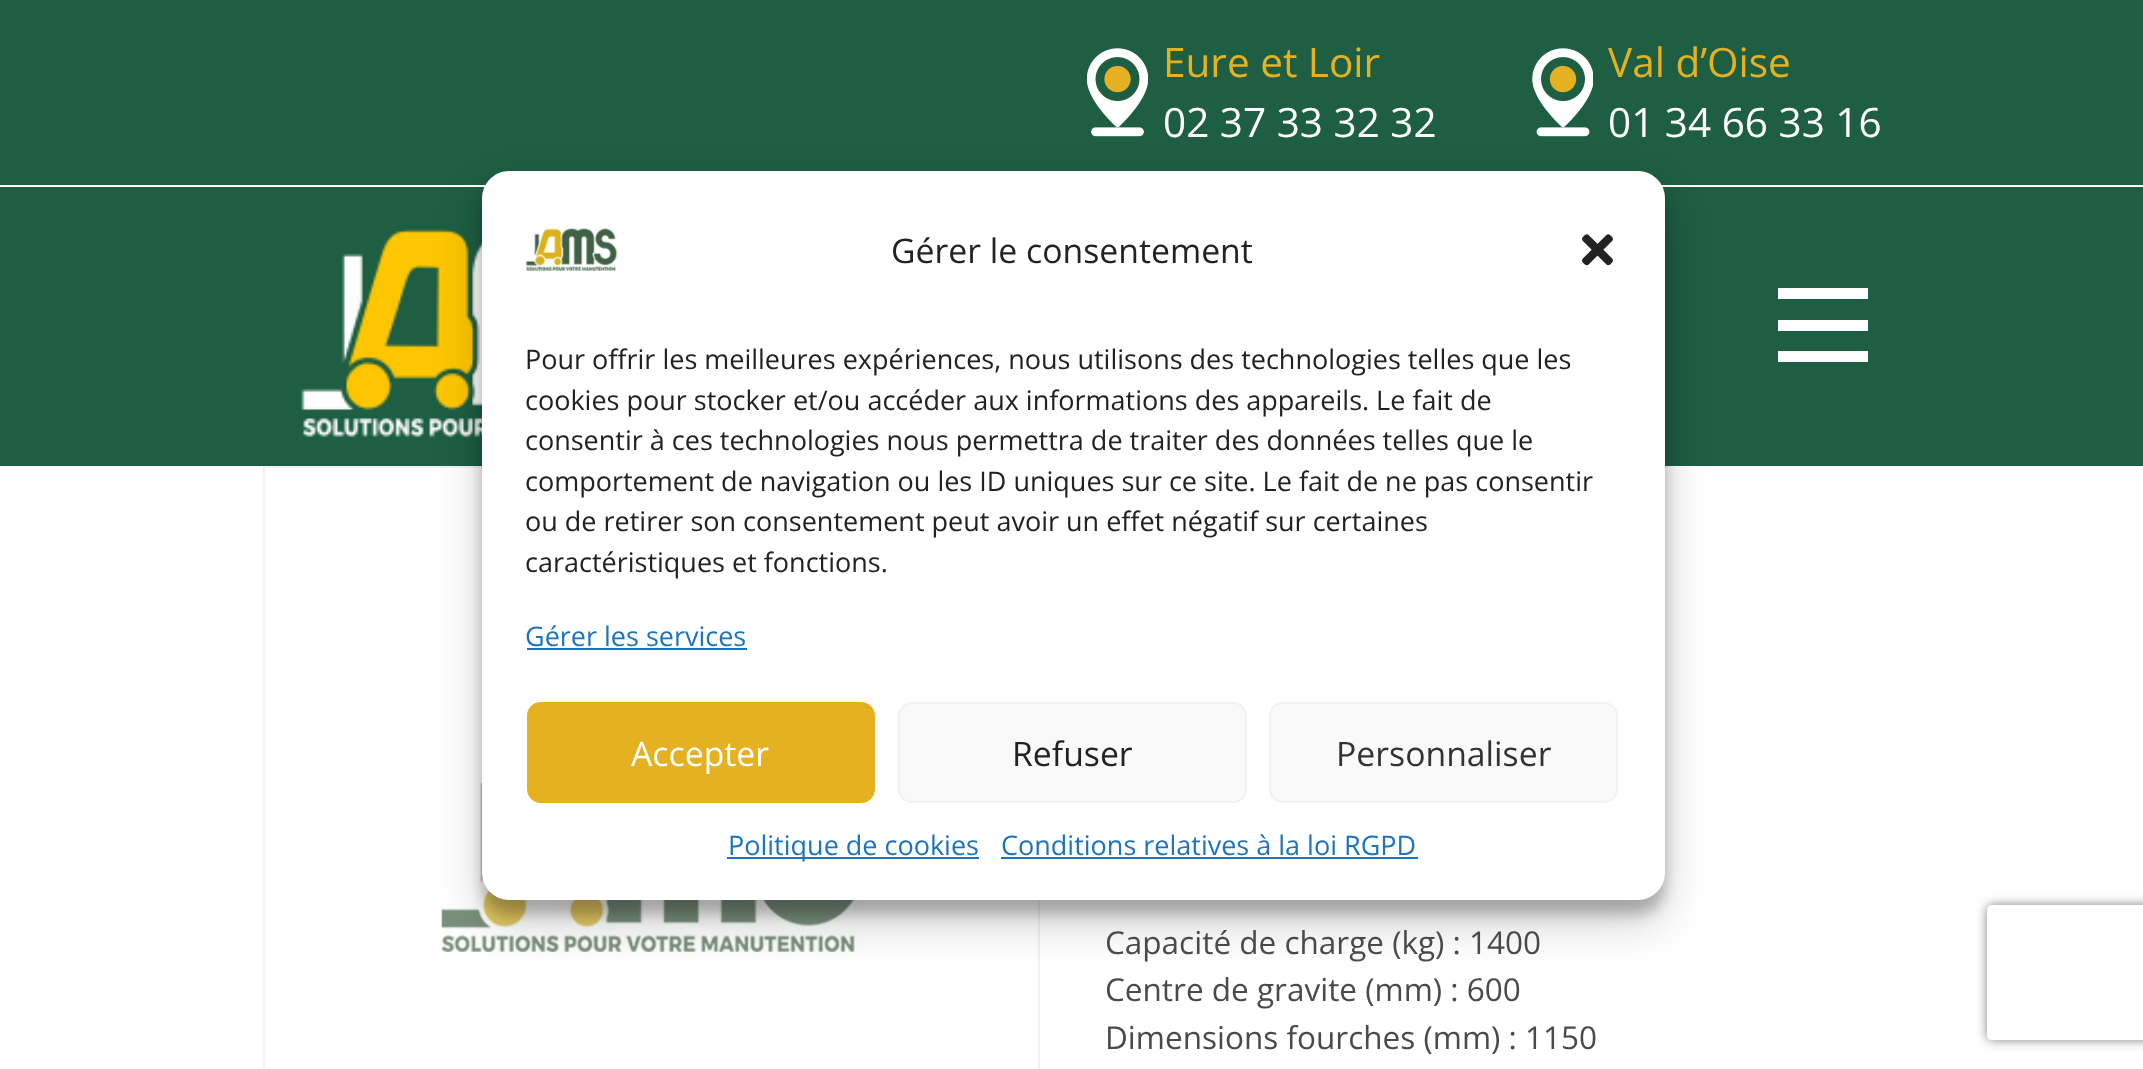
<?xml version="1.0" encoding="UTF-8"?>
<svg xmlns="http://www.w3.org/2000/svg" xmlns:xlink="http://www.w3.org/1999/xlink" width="2143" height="1069">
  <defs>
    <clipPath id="clip1"><path d="M 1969 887 h 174 v 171 h -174 z m 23 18 h 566 c 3 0 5 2 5 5 v 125 c 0 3 -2 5 -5 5 h -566 c -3 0 -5 -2 -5 -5 v -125 c 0 -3 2 -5 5 -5 z" clip-rule="evenodd" /></clipPath>
  </defs>
  <rect width="100%" height="100%" fill="#ffffff" />
  <rect width="2143" height="466" fill="#1e5e43" />
  <rect y="185" width="2143" height="2" fill="#ffffff" />
  <image x="1087" y="48" width="61" height="89" xlink:href="image1.png" />
  <image x="1532" y="48" width="61" height="89" xlink:href="image2.png" />
  <image x="301" y="229" width="181" height="209" xlink:href="image3.png" />
  <rect x="1778" y="320" width="90" height="11" fill="#ffffff" />
  <rect x="1778" y="288" width="90" height="11" fill="#ffffff" />
  <rect x="1778" y="351" width="90" height="11" fill="#ffffff" />
  <rect x="264" y="467" width="775" height="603" fill="none" stroke="#f2f2f2" stroke-width="2" />
  <image x="440" y="757" width="422" height="196" xlink:href="image6.png" />
  <rect x="482" y="185" width="1183" height="729" rx="27" fill="#000000" fill-opacity="0.23" filter="blur(7px)" />
  <rect x="482" y="194" width="1183" height="729" rx="27" fill="#000000" fill-opacity="0.19" filter="blur(22.5px)" />
  <rect x="482" y="171" width="1183" height="729" rx="27" fill="#ffffff" />
  <image x="526" y="228" width="92" height="43" xlink:href="image4.png" />
  <image x="1582" y="234" width="31" height="32" xlink:href="image5.png" />
  <rect x="527" y="648" width="220" height="2" fill="#1e73be" />
  <rect x="528" y="703" width="346" height="99" rx="13" fill="#e5b121" stroke="#e5b121" stroke-width="2" />
  <rect x="899" y="703" width="347" height="99" rx="13" fill="#f9f9f9" stroke="#f2f2f2" stroke-width="2" />
  <rect x="1270" y="703" width="347" height="99" rx="13" fill="#f9f9f9" stroke="#f2f2f2" stroke-width="2" />
  <rect x="727" y="857" width="252" height="2" fill="#1e73be" />
  <rect x="1001" y="857" width="417" height="2" fill="#1e73be" />
  <g clip-path="url(#clip1)">
    <rect x="1987" y="905" width="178" height="135" rx="5" fill="#808080" filter="blur(5.5px)" />
  </g>
  <text x="1163" y="77" style="font-family: Open Sans; font-size: 40.5px; fill: #e5b121">Eure et Loir</text>
  <text x="1163" y="137" style="font-family: Open Sans; font-size: 40.5px; fill: #ffffff">02 37 33 32 32</text>
  <text x="1608" y="77" style="font-family: Open Sans; font-size: 40.5px; fill: #e5b121">Val d’Oise</text>
  <text x="1608" y="137" style="font-family: Open Sans; font-size: 40.5px; fill: #ffffff">01 34 66 33 16</text>
  <text x="891" y="263" style="font-family: Open Sans; font-size: 33.75px; fill: #222222">Gérer le consentement</text>
  <text x="525" y="369" style="font-family: Open Sans; font-size: 27px; fill: #222222">Pour offrir les meilleures expériences, nous utilisons des technologies telles que les</text>
  <text x="525" y="410" style="font-family: Open Sans; font-size: 27px; fill: #222222">cookies pour stocker et/ou accéder aux informations des appareils. Le fait de</text>
  <text x="525" y="450" style="font-family: Open Sans; font-size: 27px; fill: #222222">consentir à ces technologies nous permettra de traiter des données telles que le</text>
  <text x="525" y="491" style="font-family: Open Sans; font-size: 27px; fill: #222222">comportement de navigation ou les ID uniques sur ce site. Le fait de ne pas consentir</text>
  <text x="525" y="531" style="font-family: Open Sans; font-size: 27px; fill: #222222">ou de retirer son consentement peut avoir un effet négatif sur certaines</text>
  <text x="525" y="572" style="font-family: Open Sans; font-size: 27px; fill: #222222">caractéristiques et fonctions.</text>
  <text x="525" y="646" style="font-family: Open Sans; font-size: 27px; fill: #1e73be">Gérer les services</text>
  <text x="631" y="766" style="font-family: Open Sans; font-size: 33.75px; fill: #ffffff">Accepter</text>
  <text x="1012" y="766" style="font-family: Open Sans; font-size: 33.75px; fill: #222222">Refuser</text>
  <text x="1336" y="766" style="font-family: Open Sans; font-size: 33.75px; fill: #333333">Personnaliser</text>
  <text x="728" y="855" style="font-family: Open Sans; font-size: 27px; fill: #1e73be">Politique de cookies</text>
  <text x="1001" y="855" style="font-family: Open Sans; font-size: 27px; fill: #1e73be">Conditions relatives à la loi RGPD</text>
  <text x="1105" y="954" style="font-family: Open Sans; font-size: 31.5px; fill: #4a4a4a">Capacité de charge (kg) : 1400</text>
  <text x="1105" y="1001" style="font-family: Open Sans; font-size: 31.5px; fill: #4a4a4a">Centre de gravite (mm) : 600</text>
  <text x="1105" y="1049" style="font-family: Open Sans; font-size: 31.5px; fill: #4a4a4a">Dimensions fourches (mm) : 1150</text>
</svg>
